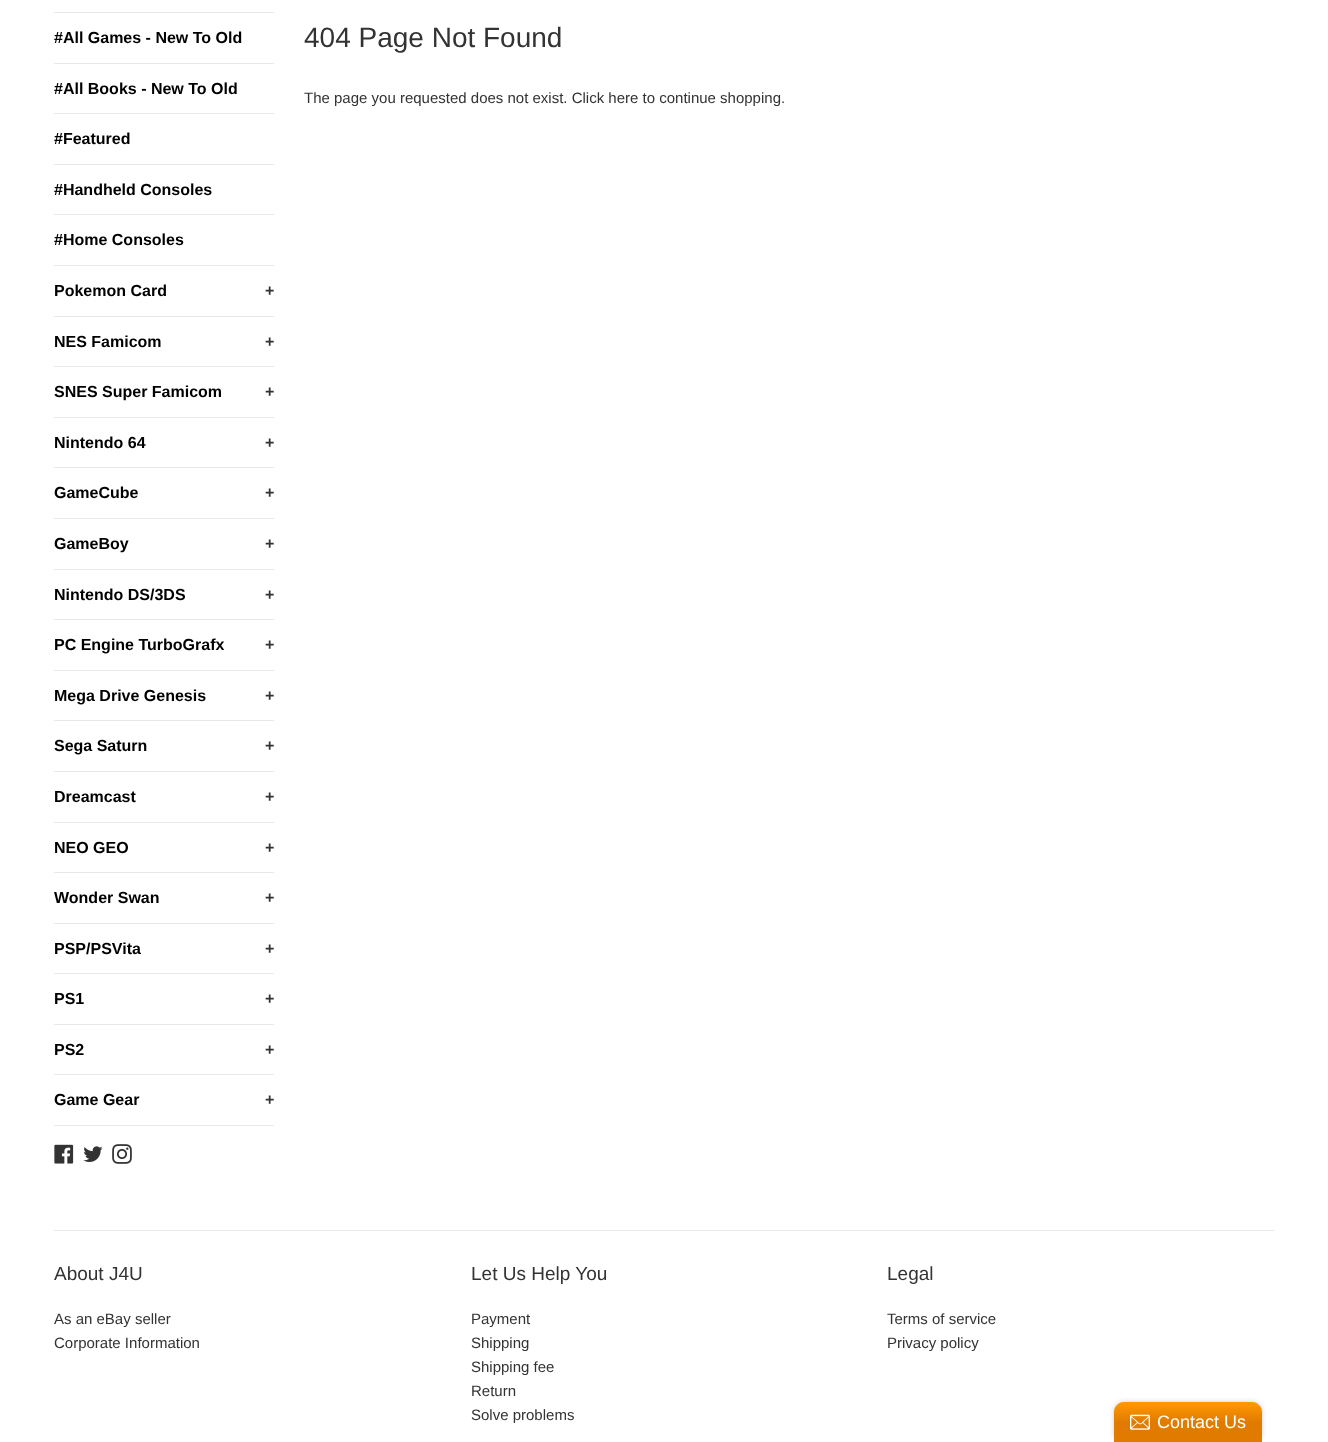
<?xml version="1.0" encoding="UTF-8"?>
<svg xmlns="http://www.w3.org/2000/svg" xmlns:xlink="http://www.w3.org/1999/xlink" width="1328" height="1442">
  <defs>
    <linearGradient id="g1" gradientUnits="userSpaceOnUse" x1="1188" y1="1402" x2="1188" y2="1442"><stop offset="0" stop-color="#ff9900" /><stop offset="0.5" stop-color="#e17b00" /></linearGradient>
  </defs>
  <rect width="100%" height="100%" fill="#ffffff" />
  <rect x="54" y="12" width="220" height="1" fill="#e8e8e8" />
  <rect x="54" y="63" width="220" height="1" fill="#e8e8e8" />
  <rect x="54" y="113" width="220" height="1" fill="#e8e8e8" />
  <rect x="54" y="164" width="220" height="1" fill="#e8e8e8" />
  <rect x="54" y="214" width="220" height="1" fill="#e8e8e8" />
  <rect x="54" y="265" width="220" height="1" fill="#e8e8e8" />
  <rect x="54" y="316" width="220" height="1" fill="#e8e8e8" />
  <rect x="54" y="366" width="220" height="1" fill="#e8e8e8" />
  <rect x="54" y="417" width="220" height="1" fill="#e8e8e8" />
  <rect x="54" y="467" width="220" height="1" fill="#e8e8e8" />
  <rect x="54" y="518" width="220" height="1" fill="#e8e8e8" />
  <rect x="54" y="569" width="220" height="1" fill="#e8e8e8" />
  <rect x="54" y="619" width="220" height="1" fill="#e8e8e8" />
  <rect x="54" y="670" width="220" height="1" fill="#e8e8e8" />
  <rect x="54" y="720" width="220" height="1" fill="#e8e8e8" />
  <rect x="54" y="771" width="220" height="1" fill="#e8e8e8" />
  <rect x="54" y="822" width="220" height="1" fill="#e8e8e8" />
  <rect x="54" y="872" width="220" height="1" fill="#e8e8e8" />
  <rect x="54" y="923" width="220" height="1" fill="#e8e8e8" />
  <rect x="54" y="973" width="220" height="1" fill="#e8e8e8" />
  <rect x="54" y="1024" width="220" height="1" fill="#e8e8e8" />
  <rect x="54" y="1074" width="220" height="1" fill="#e8e8e8" />
  <rect x="54" y="1125" width="220" height="1" fill="#e8e8e8" />
  <image x="54" y="1144" width="20" height="20" xlink:href="image1.png" />
  <image x="83" y="1146" width="20" height="16" xlink:href="image2.png" />
  <image x="112" y="1144" width="20" height="20" xlink:href="image3.png" />
  <rect x="54" y="1230" width="1220" height="1" fill="#e8e8e8" />
  <rect x="1114" y="1402" width="148" height="40" rx="10" fill="#000000" fill-opacity="0.2" filter="blur(2.5px)" />
  <path d="M 1124 1402 h 128 c 5.5 0 10 4.5 10 10 v 30 h -148 v -30 c 0 -5.5 4.5 -10 10 -10 z" fill="url(#g1)" />
  <image x="1130" y="1414" width="20" height="16" xlink:href="image4.png" />
  <text x="54" y="43" style="font-family: Arimo; font-size: 16px; font-weight: bold; fill: #000000">#All Games - New To Old</text>
  <text x="54" y="94" style="font-family: Arimo; font-size: 16px; font-weight: bold; fill: #000000">#All Books - New To Old</text>
  <text x="54" y="144" style="font-family: Arimo; font-size: 16px; font-weight: bold; fill: #000000">#Featured</text>
  <text x="54" y="195" style="font-family: Arimo; font-size: 16px; font-weight: bold; fill: #000000">#Handheld Consoles</text>
  <text x="54" y="245" style="font-family: Arimo; font-size: 16px; font-weight: bold; fill: #000000">#Home Consoles</text>
  <text x="54" y="296" style="font-family: Arimo; font-size: 16px; font-weight: bold; fill: #000000">Pokemon Card</text>
  <text x="265" y="296" style="font-family: Arimo; font-size: 16px; font-weight: bold; fill: #333333">+</text>
  <text x="54" y="347" style="font-family: Arimo; font-size: 16px; font-weight: bold; fill: #000000">NES Famicom</text>
  <text x="265" y="347" style="font-family: Arimo; font-size: 16px; font-weight: bold; fill: #333333">+</text>
  <text x="54" y="397" style="font-family: Arimo; font-size: 16px; font-weight: bold; fill: #000000">SNES Super Famicom</text>
  <text x="265" y="397" style="font-family: Arimo; font-size: 16px; font-weight: bold; fill: #333333">+</text>
  <text x="54" y="448" style="font-family: Arimo; font-size: 16px; font-weight: bold; fill: #000000">Nintendo 64</text>
  <text x="265" y="448" style="font-family: Arimo; font-size: 16px; font-weight: bold; fill: #333333">+</text>
  <text x="54" y="498" style="font-family: Arimo; font-size: 16px; font-weight: bold; fill: #000000">GameCube</text>
  <text x="265" y="498" style="font-family: Arimo; font-size: 16px; font-weight: bold; fill: #333333">+</text>
  <text x="54" y="549" style="font-family: Arimo; font-size: 16px; font-weight: bold; fill: #000000">GameBoy</text>
  <text x="265" y="549" style="font-family: Arimo; font-size: 16px; font-weight: bold; fill: #333333">+</text>
  <text x="54" y="600" style="font-family: Arimo; font-size: 16px; font-weight: bold; fill: #000000">Nintendo DS/3DS</text>
  <text x="265" y="600" style="font-family: Arimo; font-size: 16px; font-weight: bold; fill: #333333">+</text>
  <text x="54" y="650" style="font-family: Arimo; font-size: 16px; font-weight: bold; fill: #000000">PC Engine TurboGrafx</text>
  <text x="265" y="650" style="font-family: Arimo; font-size: 16px; font-weight: bold; fill: #333333">+</text>
  <text x="54" y="701" style="font-family: Arimo; font-size: 16px; font-weight: bold; fill: #000000">Mega Drive Genesis</text>
  <text x="265" y="701" style="font-family: Arimo; font-size: 16px; font-weight: bold; fill: #333333">+</text>
  <text x="54" y="751" style="font-family: Arimo; font-size: 16px; font-weight: bold; fill: #000000">Sega Saturn</text>
  <text x="265" y="751" style="font-family: Arimo; font-size: 16px; font-weight: bold; fill: #333333">+</text>
  <text x="54" y="802" style="font-family: Arimo; font-size: 16px; font-weight: bold; fill: #000000">Dreamcast</text>
  <text x="265" y="802" style="font-family: Arimo; font-size: 16px; font-weight: bold; fill: #333333">+</text>
  <text x="54" y="853" style="font-family: Arimo; font-size: 16px; font-weight: bold; fill: #000000">NEO GEO</text>
  <text x="265" y="853" style="font-family: Arimo; font-size: 16px; font-weight: bold; fill: #333333">+</text>
  <text x="54" y="903" style="font-family: Arimo; font-size: 16px; font-weight: bold; fill: #000000">Wonder Swan</text>
  <text x="265" y="903" style="font-family: Arimo; font-size: 16px; font-weight: bold; fill: #333333">+</text>
  <text x="54" y="954" style="font-family: Arimo; font-size: 16px; font-weight: bold; fill: #000000">PSP/PSVita</text>
  <text x="265" y="954" style="font-family: Arimo; font-size: 16px; font-weight: bold; fill: #333333">+</text>
  <text x="54" y="1004" style="font-family: Arimo; font-size: 16px; font-weight: bold; fill: #000000">PS1</text>
  <text x="265" y="1004" style="font-family: Arimo; font-size: 16px; font-weight: bold; fill: #333333">+</text>
  <text x="54" y="1055" style="font-family: Arimo; font-size: 16px; font-weight: bold; fill: #000000">PS2</text>
  <text x="265" y="1055" style="font-family: Arimo; font-size: 16px; font-weight: bold; fill: #333333">+</text>
  <text x="54" y="1105" style="font-family: Arimo; font-size: 16px; font-weight: bold; fill: #000000">Game Gear</text>
  <text x="265" y="1105" style="font-family: Arimo; font-size: 16px; font-weight: bold; fill: #333333">+</text>
  <text x="304" y="47" style="font-family: Arimo; font-size: 28px; fill: #333333">404 Page Not Found</text>
  <text x="304" y="103" style="font-family: Arimo; font-size: 15px; fill: #333333">The page you requested does not exist. Click here to continue shopping.</text>
  <text x="54" y="1280" style="font-family: Arimo; font-size: 19px; fill: #333333">About J4U</text>
  <text x="54" y="1324" style="font-family: Arimo; font-size: 15px; fill: #333333">As an eBay seller</text>
  <text x="54" y="1348" style="font-family: Arimo; font-size: 15px; fill: #333333">Corporate Information</text>
  <text x="471" y="1280" style="font-family: Arimo; font-size: 19px; fill: #333333">Let Us Help You</text>
  <text x="471" y="1324" style="font-family: Arimo; font-size: 15px; fill: #333333">Payment</text>
  <text x="471" y="1348" style="font-family: Arimo; font-size: 15px; fill: #333333">Shipping</text>
  <text x="471" y="1372" style="font-family: Arimo; font-size: 15px; fill: #333333">Shipping fee</text>
  <text x="471" y="1396" style="font-family: Arimo; font-size: 15px; fill: #333333">Return</text>
  <text x="471" y="1420" style="font-family: Arimo; font-size: 15px; fill: #333333">Solve problems</text>
  <text x="887" y="1280" style="font-family: Arimo; font-size: 19px; fill: #333333">Legal</text>
  <text x="887" y="1324" style="font-family: Arimo; font-size: 15px; fill: #333333">Terms of service</text>
  <text x="887" y="1348" style="font-family: Arimo; font-size: 15px; fill: #333333">Privacy policy</text>
  <text x="1157" y="1428" style="font-family: Liberation Sans; font-size: 18px; fill: #ffffff">Contact Us</text>
</svg>
